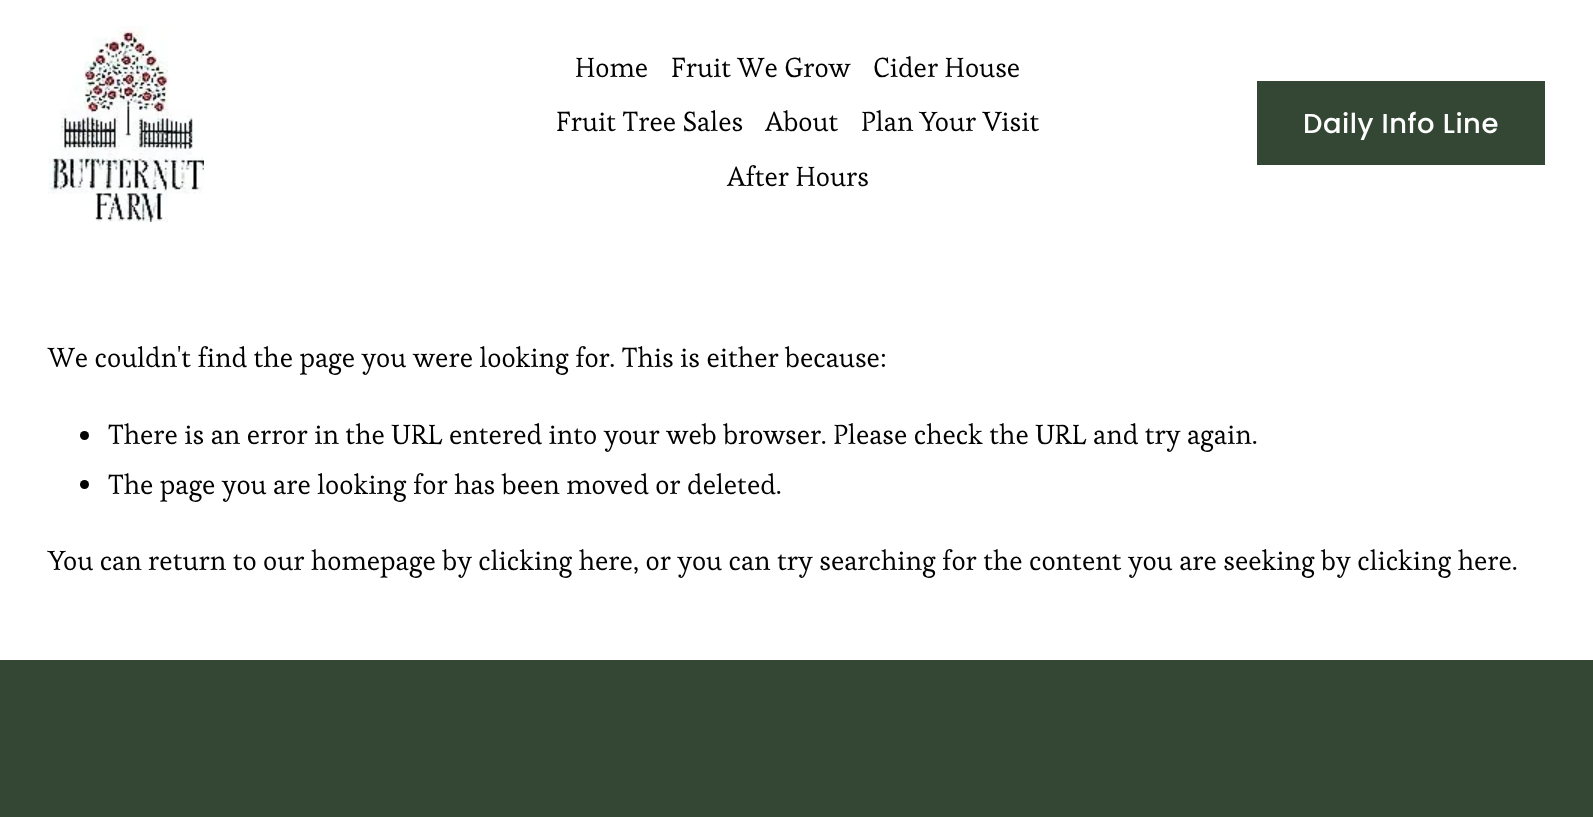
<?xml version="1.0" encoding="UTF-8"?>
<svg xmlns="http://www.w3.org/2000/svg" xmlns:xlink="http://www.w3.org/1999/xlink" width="1593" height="817">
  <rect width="100%" height="100%" fill="#ffffff" />
  <image x="48" y="26" width="156" height="196" xlink:href="image1.png" />
  <rect x="1257" y="81" width="288" height="84" fill="#344734" />
  <circle cx="84.5" cy="435.5" r="4.5" fill="#000000" />
  <circle cx="84.5" cy="484.5" r="4.5" fill="#000000" />
  <rect y="660" width="1593" height="157" fill="#344734" />
  <text x="575" y="77" style="font-family: Esteban; font-size: 27.4px; fill: #000000">Home</text>
  <text x="671" y="77" style="font-family: Esteban; font-size: 27.4px; fill: #000000">Fruit We Grow</text>
  <text x="873" y="77" style="font-family: Esteban; font-size: 27.4px; fill: #000000">Cider House</text>
  <text x="556" y="131" style="font-family: Esteban; font-size: 27.4px; fill: #000000">Fruit Tree Sales</text>
  <text x="765" y="131" style="font-family: Esteban; font-size: 27.4px; fill: #000000">About</text>
  <text x="861" y="131" style="font-family: Esteban; font-size: 27.4px; fill: #000000">Plan Your Visit</text>
  <text x="727" y="186" style="font-family: Esteban; font-size: 27.4px; fill: #000000">After Hours</text>
  <text x="1303" y="133" style="font-family: Poppins; font-size: 27.4px; font-weight: 500; letter-spacing: 0.5px; fill: #ffffff">Daily Info Line</text>
  <text x="48" y="367" style="font-family: Esteban; font-size: 27.4px; fill: #000000">We couldn't find the page you were looking for. This is either because:</text>
  <text x="108" y="444" style="font-family: Esteban; font-size: 27.4px; fill: #000000">There is an error in the URL entered into your web browser. Please check the URL and try again.</text>
  <text x="108" y="494" style="font-family: Esteban; font-size: 27.4px; fill: #000000">The page you are looking for has been moved or deleted.</text>
  <text x="48" y="570" style="font-family: Esteban; font-size: 27.4px; fill: #000000">You can return to our homepage by clicking here, or you can try searching for the content you are seeking by clicking here.</text>
</svg>
